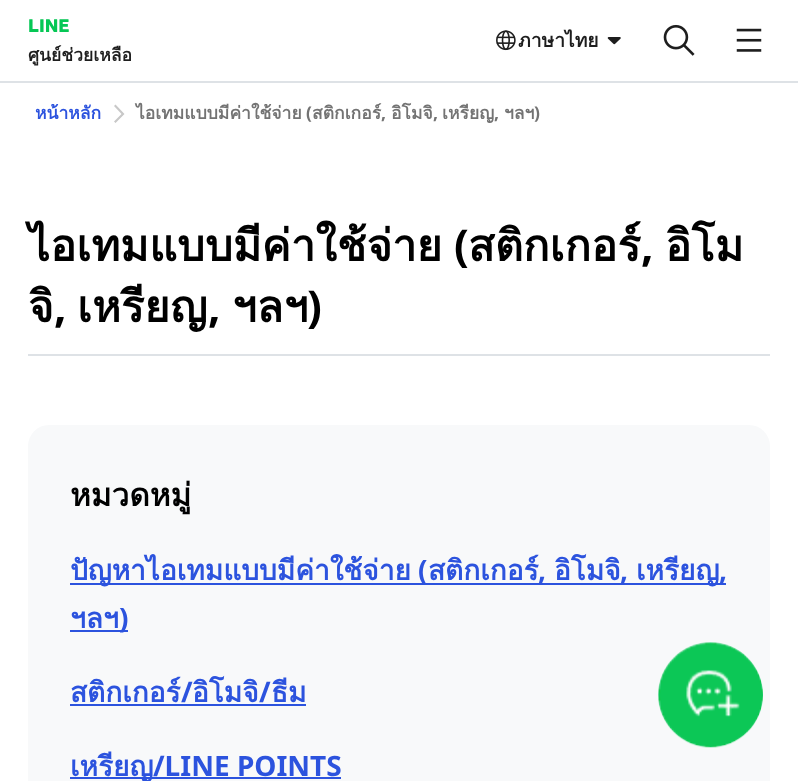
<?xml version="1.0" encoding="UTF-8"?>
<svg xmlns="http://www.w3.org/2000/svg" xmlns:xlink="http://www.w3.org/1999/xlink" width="798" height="781">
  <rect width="100%" height="100%" fill="#ffffff" />
  <rect y="81" width="798" height="2" fill="#dee2e6" />
  <image x="496" y="30" width="20" height="21" xlink:href="image1.png" />
  <image x="607" y="37" width="14" height="8" xlink:href="image2.png" />
  <image x="663" y="24" width="32" height="32" xlink:href="image3.png" />
  <image x="736" y="28" width="26" height="24" xlink:href="image4.png" />
  <path d="M 115.5 104.5 l 9 9.5 l -9 9 l -1.5 -1.5 l 7.5 -7.5 l -7.5 -8 z" fill="#c8c8c8" />
  <rect x="28" y="354" width="742" height="2" fill="#dee2e6" />
  <rect x="28" y="425" width="742" height="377" rx="21" fill="#f8f9fa" />
  <rect x="70" y="583" width="656" height="2" fill="#2c53de" />
  <rect x="70" y="630" width="58" height="2" fill="#2c53de" />
  <rect x="70" y="704" width="236" height="2" fill="#2c53de" />
  <rect x="70" y="777" width="271" height="2" fill="#2c53de" />
  <image x="658" y="642" width="105" height="106" xlink:href="image5.png" />
  <text x="28" y="32" style="font-family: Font; font-size: 17.5px; font-weight: 800; fill: #06c755">LINE</text>
  <text x="28" y="61" style="font-family: Loma; font-size: 17.5px; font-weight: bold; fill: #1e1e1e">ศูนย์ช่วยเหลือ</text>
  <text x="518" y="47" style="font-family: Loma; font-size: 19.25px; font-weight: bold; fill: #1e1e1e">ภาษาไทย</text>
  <text x="35" y="119" style="font-family: Loma; font-size: 17.5px; font-weight: bold; fill: #2c53de">หน้าหลัก</text>
  <text x="136" y="119" style="font-family: Loma; font-size: 17.5px; font-weight: bold; fill: #737373">ไอเทมแบบมีค่าใช้จ่าย</text>
  <text x="306" y="119" style="font-family: Noto Sans; font-size: 17.5px; font-weight: bold; fill: #737373">(</text>
  <text x="312" y="119" style="font-family: Loma; font-size: 17.5px; font-weight: bold; fill: #737373">สติกเกอร์</text>
  <text x="442" y="119" style="font-family: Loma; font-size: 17.5px; font-weight: bold; fill: #737373">เหรียญ</text>
  <text x="504" y="119" style="font-family: Loma; font-size: 17.5px; font-weight: bold; fill: #737373">ฯลฯ</text>
  <text x="534" y="119" style="font-family: Noto Sans; font-size: 17.5px; font-weight: bold; fill: #737373">)</text>
  <text x="381" y="119" style="font-family: Noto Sans; font-size: 17.5px; font-weight: bold; fill: #737373">,</text>
  <text x="391" y="119" style="font-family: Loma; font-size: 17.5px; font-weight: bold; fill: #737373">อิโมจิ</text>
  <text x="433" y="119" style="font-family: Noto Sans; font-size: 17.5px; font-weight: bold; fill: #737373">,</text>
  <text x="494" y="119" style="font-family: Noto Sans; font-size: 17.5px; font-weight: bold; fill: #737373">,</text>
  <text x="28" y="261" style="font-family: Loma; font-size: 43.75px; font-weight: bold; fill: #000000">ไอเทมแบบมีค่าใช้จ่าย</text>
  <text x="454" y="261" style="font-family: Noto Sans; font-size: 43.75px; font-weight: bold; fill: #000000">(</text>
  <text x="468" y="261" style="font-family: Loma; font-size: 43.75px; font-weight: bold; fill: #000000">สติกเกอร์</text>
  <text x="641" y="261" style="font-family: Noto Sans; font-size: 43.75px; font-weight: bold; fill: #000000">,</text>
  <text x="665" y="261" style="font-family: Loma; font-size: 43.75px; font-weight: bold; fill: #000000">อิโม</text>
  <text x="28" y="322" style="font-family: Loma; font-size: 43.75px; font-weight: bold; fill: #000000">จิ</text>
  <text x="54" y="322" style="font-family: Noto Sans; font-size: 43.75px; font-weight: bold; fill: #000000">,</text>
  <text x="77" y="322" style="font-family: Loma; font-size: 43.75px; font-weight: bold; fill: #000000">เหรียญ</text>
  <text x="208" y="322" style="font-family: Noto Sans; font-size: 43.75px; font-weight: bold; fill: #000000">,</text>
  <text x="232" y="322" style="font-family: Loma; font-size: 43.75px; font-weight: bold; fill: #000000">ฯลฯ</text>
  <text x="307" y="322" style="font-family: Noto Sans; font-size: 43.75px; font-weight: bold; fill: #000000">)</text>
  <text x="70" y="506" style="font-family: Loma; font-size: 31.5px; font-weight: bold; fill: #000000">หมวดหมู่</text>
  <text x="70" y="580" style="font-family: Loma; font-size: 28px; font-weight: bold; fill: #2c53de">ปัญหาไอเทมแบบมีค่าใช้จ่าย</text>
  <text x="418" y="580" style="font-family: Noto Sans; font-size: 28px; font-weight: bold; fill: #2c53de">(</text>
  <text x="428" y="580" style="font-family: Loma; font-size: 28px; font-weight: bold; fill: #2c53de">สติกเกอร์</text>
  <text x="636" y="580" style="font-family: Loma; font-size: 28px; font-weight: bold; fill: #2c53de">เหรียญ</text>
  <text x="538" y="580" style="font-family: Noto Sans; font-size: 28px; font-weight: bold; fill: #2c53de">,</text>
  <text x="554" y="580" style="font-family: Loma; font-size: 28px; font-weight: bold; fill: #2c53de">อิโมจิ</text>
  <text x="620" y="580" style="font-family: Noto Sans; font-size: 28px; font-weight: bold; fill: #2c53de">,</text>
  <text x="719" y="580" style="font-family: Noto Sans; font-size: 28px; font-weight: bold; fill: #2c53de">,</text>
  <text x="70" y="628" style="font-family: Loma; font-size: 28px; font-weight: bold; fill: #2c53de">ฯลฯ</text>
  <text x="119" y="628" style="font-family: Noto Sans; font-size: 28px; font-weight: bold; fill: #2c53de">)</text>
  <text x="70" y="702" style="font-family: Loma; font-size: 28px; font-weight: bold; fill: #2c53de">สติกเกอร์</text>
  <text x="181" y="702" style="font-family: Noto Sans; font-size: 28px; font-weight: bold; fill: #2c53de">/</text>
  <text x="192" y="702" style="font-family: Loma; font-size: 28px; font-weight: bold; fill: #2c53de">อิโมจิ</text>
  <text x="259" y="702" style="font-family: Noto Sans; font-size: 28px; font-weight: bold; fill: #2c53de">/</text>
  <text x="271" y="702" style="font-family: Loma; font-size: 28px; font-weight: bold; fill: #2c53de">ธีม</text>
  <text x="70" y="776" style="font-family: Loma; font-size: 28px; font-weight: bold; fill: #2c53de">เหรียญ</text>
  <text x="153" y="776" style="font-family: Noto Sans; font-size: 28px; font-weight: bold; fill: #2c53de">/LINE POINTS</text>
</svg>
